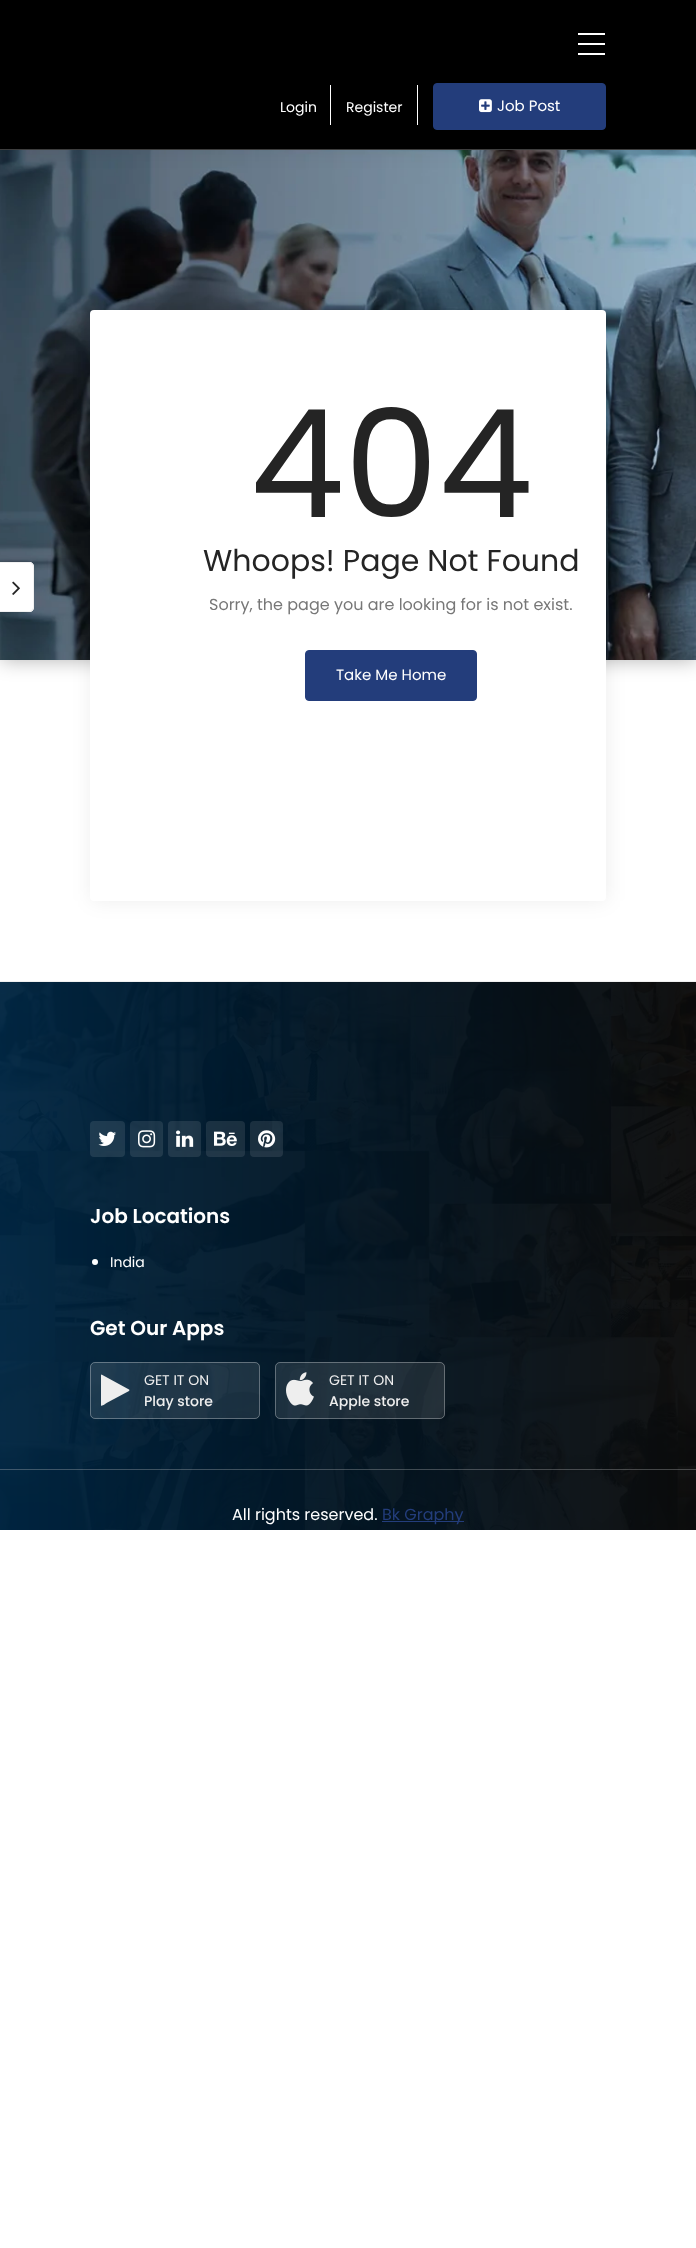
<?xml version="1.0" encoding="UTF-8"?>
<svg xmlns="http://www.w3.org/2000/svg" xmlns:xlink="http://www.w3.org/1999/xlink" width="696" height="2248">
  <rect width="100%" height="100%" fill="#ffffff" />
  <rect x="1" y="80" width="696" height="580" fill="#000000" fill-opacity="0.3" filter="blur(10px)" />
  <image x="0" y="150" width="696" height="510" xlink:href="image1.png" />
  <rect x="1" width="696" height="150" fill="#000000" fill-opacity="0.07" filter="blur(10px)" />
  <rect width="696" height="149" fill="#000000" />
  <rect y="149" width="696" height="1" fill="#3d3d3d" />
  <rect x="578" y="33" width="27" height="2" fill="#ffffff" />
  <rect x="578" y="43" width="27" height="2" fill="#ffffff" />
  <rect x="578" y="53" width="27" height="2" fill="#ffffff" />
  <rect x="330" y="85" width="1" height="40" fill="#ffffff" />
  <rect x="417" y="85" width="1" height="40" fill="#ffffff" />
  <rect x="433.5" y="83.5" width="172" height="46" rx="3.5" fill="#233d7b" stroke="#233d7b" />
  <image x="479" y="99" width="13" height="14" xlink:href="image2.png" />
  <path d="M -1 562 h 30 c 3 0 5 2 5 5 v 40 c 0 3 -2 5 -5 5 h -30 z" fill="#ffffff" />
  <path d="M -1 562 h 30 c 3 0 5 2 5 5 v 40 c 0 3 -2 5 -5 5 h -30 z m 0 1 h 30 c 2 0 4 2 4 4 v 40 c 0 2 -2 4 -4 4 h -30 z" fill="#f1f1f1" fill-rule="evenodd" />
  <image x="12" y="581" width="8" height="14" xlink:href="image3.png" />
  <rect x="91" y="310" width="516" height="591" rx="4" fill="#000000" fill-opacity="0.07" filter="blur(10px)" />
  <rect x="90" y="310" width="516" height="591" rx="4" fill="#ffffff" />
  <rect x="305.5" y="650.5" width="171" height="50" rx="3.5" fill="#233d7b" stroke="#233d7b" />
  <image x="0" y="982" width="696" height="548" xlink:href="image4.png" />
  <rect y="981" width="696" height="1" fill="#f0f0f0" />
  <rect x="90" y="1121" width="35" height="36" rx="4" fill="#ffffff" fill-opacity="0.1" />
  <image x="98" y="1131" width="18" height="15" xlink:href="image5.png" />
  <rect x="130" y="1121" width="33" height="36" rx="4" fill="#ffffff" fill-opacity="0.1" />
  <image x="138" y="1130" width="18" height="18" xlink:href="image6.png" />
  <rect x="168" y="1121" width="33" height="36" rx="4" fill="#ffffff" fill-opacity="0.1" />
  <image x="176" y="1130" width="18" height="17" xlink:href="image7.png" />
  <rect x="206" y="1121" width="39" height="36" rx="4" fill="#ffffff" fill-opacity="0.1" />
  <image x="214" y="1131" width="23" height="15" xlink:href="image8.png" />
  <rect x="250" y="1121" width="33" height="36" rx="4" fill="#ffffff" fill-opacity="0.1" />
  <image x="258" y="1130" width="18" height="18" xlink:href="image9.png" />
  <circle cx="95" cy="1262" r="3" fill="#ffffff" />
  <rect x="90" y="1362" width="170" height="57" rx="5" fill="#ffffff" fill-opacity="0.1" />
  <rect x="90.5" y="1362.5" width="169" height="56" rx="4.5" fill="none" stroke="#ffffff" stroke-opacity="0.3" />
  <path d="M 129 1391 l -22.5 12 c -0.5 0.5 -4.5 3.5 -5.5 2.5 v -30.5 l 0.5 -0.5 l 27.5 15 l 0.5 0.5 z" fill="#eeeeee" />
  <rect x="275" y="1362" width="170" height="57" rx="5" fill="#ffffff" fill-opacity="0.1" />
  <rect x="275.5" y="1362.5" width="169" height="56" rx="4.5" fill="none" stroke="#ffffff" stroke-opacity="0.3" />
  <image x="286" y="1372" width="28" height="34" xlink:href="image10.png" />
  <rect y="1469" width="696" height="1" fill="#cccccc" fill-opacity="0.3" />
  <rect x="382" y="1521" width="82" height="1" fill="#233d7b" />
  <text x="280" y="112" style="font-family: Poppins; font-size: 14px; fill: #ffffff">Login</text>
  <text x="346" y="112" style="font-family: Poppins; font-size: 14px; fill: #ffffff">Register</text>
  <text x="497" y="111" style="font-family: Poppins; font-size: 15px; fill: #ffffff">Job Post</text>
  <text x="250" y="517" style="font-family: Poppins; font-size: 150px; fill: #242424">404</text>
  <text x="203" y="571" style="font-family: Poppins; font-size: 30px; fill: #242424">Whoops! Page Not Found</text>
  <text x="209" y="610" style="font-family: Poppins; font-size: 16px; fill: #777777">Sorry, the page you are looking for is not exist.</text>
  <text x="336" y="680" style="font-family: Poppins; font-size: 15px; fill: #ffffff">Take Me Home</text>
  <text x="90" y="1223" style="font-family: Poppins; font-size: 20px; font-weight: 600; fill: #ffffff">Job Locations</text>
  <text x="110" y="1267" style="font-family: Poppins; font-size: 14px; fill: #ffffff">India</text>
  <text x="90" y="1335" style="font-family: Poppins; font-size: 20px; font-weight: 600; fill: #ffffff">Get Our Apps</text>
  <text x="144" y="1385" style="font-family: Poppins; font-size: 14px; fill: #eeeeee">GET IT ON</text>
  <text x="144" y="1406" style="font-family: Poppins; font-size: 14px; font-weight: 500; fill: #eeeeee">Play store</text>
  <text x="329" y="1385" style="font-family: Poppins; font-size: 14px; fill: #eeeeee">GET IT ON</text>
  <text x="329" y="1406" style="font-family: Poppins; font-size: 14px; font-weight: 500; fill: #eeeeee">Apple store</text>
  <text x="232" y="1520" style="font-family: Poppins; font-size: 16px; fill: #ffffff">All rights reserved.</text>
  <text x="382" y="1520" style="font-family: Poppins; font-size: 16px; fill: #233d7b">Bk Graphy</text>
</svg>
